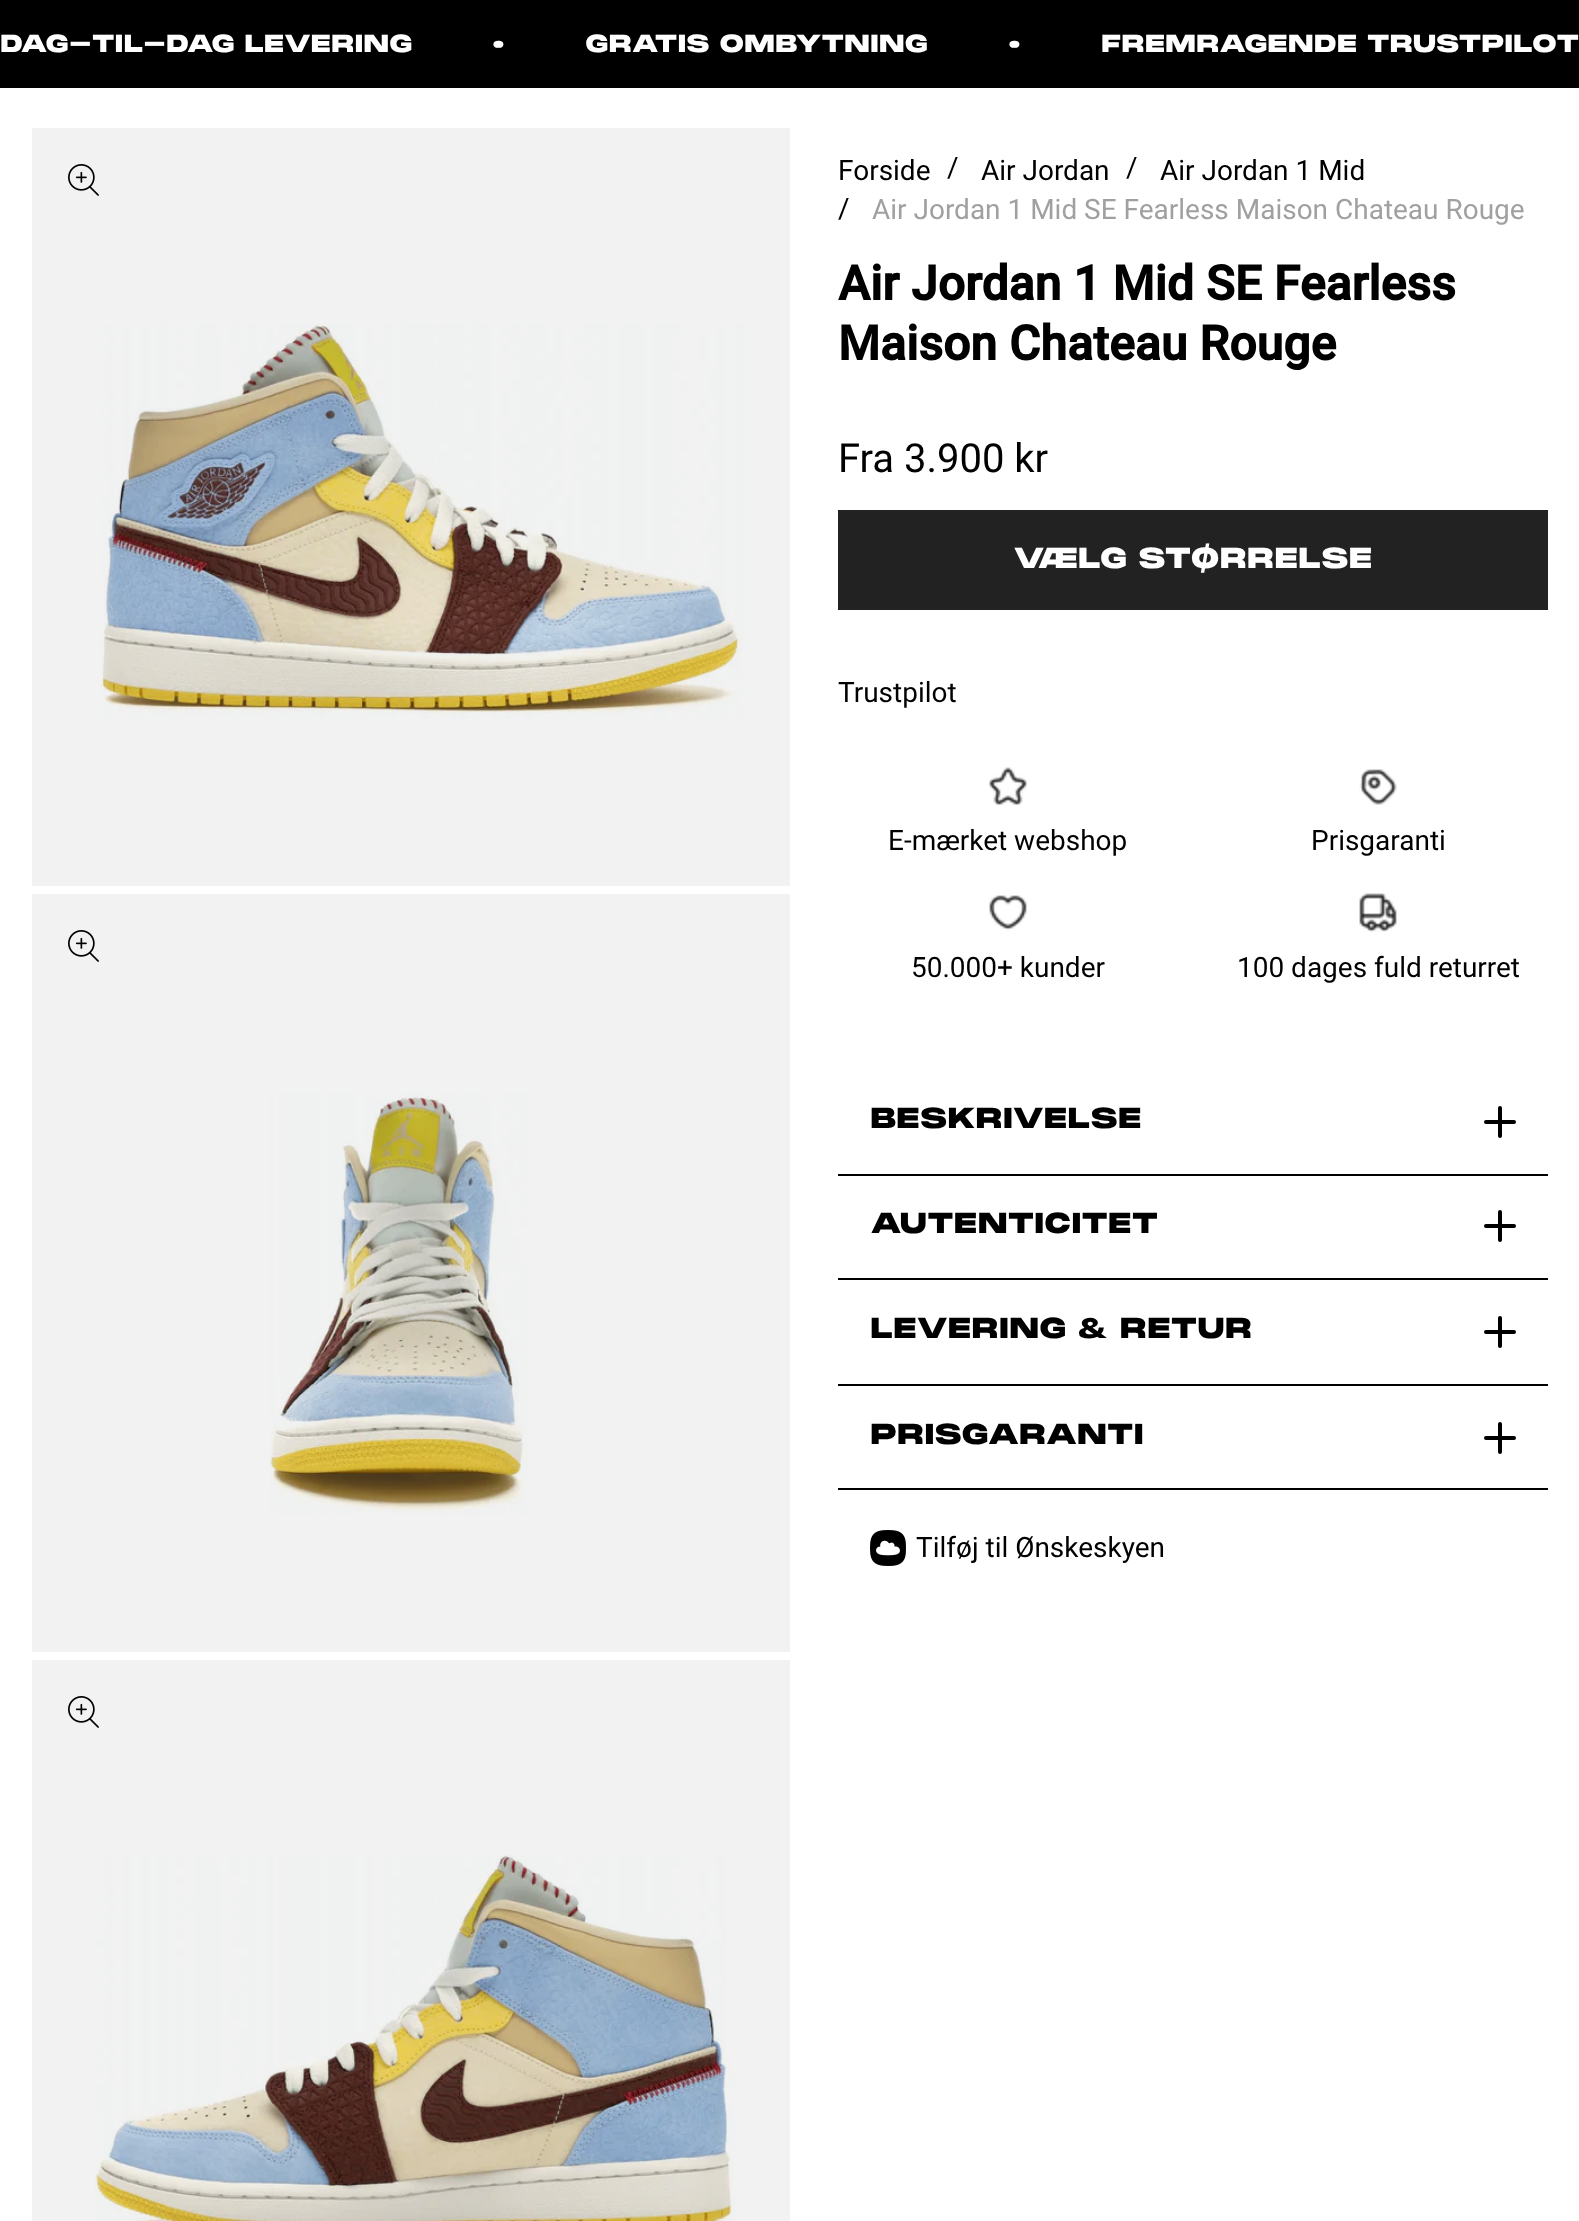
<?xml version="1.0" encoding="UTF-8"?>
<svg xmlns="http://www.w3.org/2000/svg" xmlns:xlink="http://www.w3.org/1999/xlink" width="1579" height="2221">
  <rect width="100%" height="100%" fill="#ffffff" />
  <rect x="32" y="1660" width="758" height="561" fill="#f2f2f2" />
  <rect x="32" y="894" width="758" height="758" fill="#f2f2f2" />
  <rect x="32" y="128" width="758" height="758" fill="#f2f2f2" />
  <rect width="1579" height="88" fill="#000000" />
  <image x="68" y="164" width="31" height="32" xlink:href="image1.png" />
  <image x="101" y="323" width="643" height="396" xlink:href="image2.png" />
  <image x="68" y="930" width="31" height="32" xlink:href="image1.png" />
  <image x="270" y="1092" width="258" height="423" xlink:href="image3.png" />
  <image x="68" y="1696" width="31" height="32" xlink:href="image1.png" />
  <image x="95" y="1854" width="640" height="367" xlink:href="image4.png" />
  <rect x="838" y="510" width="710" height="100" fill="#222222" />
  <image x="989" y="767" width="38" height="39" xlink:href="image5.png" />
  <image x="1359" y="769" width="38" height="36" xlink:href="image6.png" />
  <image x="989" y="895" width="38" height="36" xlink:href="image7.png" />
  <image x="1359" y="893" width="38" height="39" xlink:href="image8.png" />
  <rect x="838" y="1174" width="710" height="2" fill="#000000" />
  <rect x="1484" y="1120" width="32" height="4" rx="2" fill="#000000" />
  <rect x="1498" y="1106" width="4" height="32" rx="2" fill="#000000" />
  <rect x="838" y="1278" width="710" height="2" fill="#000000" />
  <rect x="1484" y="1224" width="32" height="4" rx="2" fill="#000000" />
  <rect x="1498" y="1210" width="4" height="32" rx="2" fill="#000000" />
  <rect x="838" y="1384" width="710" height="2" fill="#000000" />
  <rect x="1484" y="1330" width="32" height="4" rx="2" fill="#000000" />
  <rect x="1498" y="1316" width="4" height="32" rx="2" fill="#000000" />
  <rect x="838" y="1488" width="710" height="2" fill="#000000" />
  <rect x="1484" y="1436" width="32" height="4" rx="2" fill="#000000" />
  <rect x="1498" y="1422" width="4" height="32" rx="2" fill="#000000" />
  <image x="870" y="1530" width="36" height="36" xlink:href="image9.png" />
  <text x="0" y="52" style="font-family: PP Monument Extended; font-size: 24px; font-weight: 900; fill: #ffffff">DAG-TIL-DAG LEVERING</text>
  <text x="492" y="52" style="font-family: PP Monument Extended; font-size: 24px; font-weight: 900; fill: #ffffff">•</text>
  <text x="585" y="52" style="font-family: PP Monument Extended; font-size: 24px; font-weight: 900; fill: #ffffff">GRATIS OMBYTNING</text>
  <text x="1008" y="52" style="font-family: PP Monument Extended; font-size: 24px; font-weight: 900; fill: #ffffff">•</text>
  <text x="1101" y="52" style="font-family: PP Monument Extended; font-size: 24px; font-weight: 900; fill: #ffffff">FREMRAGENDE TRUSTPILOT</text>
  <text x="838" y="180" style="font-family: Roboto; font-size: 28px; fill: #000000">Forside</text>
  <text x="947" y="177" style="font-family: Roboto; font-size: 28px; fill: #000000">/</text>
  <text x="981" y="180" style="font-family: Roboto; font-size: 28px; fill: #000000">Air Jordan</text>
  <text x="1126" y="177" style="font-family: Roboto; font-size: 28px; fill: #000000">/</text>
  <text x="1160" y="180" style="font-family: Roboto; font-size: 28px; fill: #000000">Air Jordan 1 Mid</text>
  <text x="838" y="218" style="font-family: Roboto; font-size: 28px; fill: #000000">/</text>
  <text x="872" y="219" style="font-family: Roboto; font-size: 28px; fill: #a0a0a0">Air Jordan 1 Mid SE Fearless Maison Chateau Rouge</text>
  <text x="838" y="300" style="font-family: Roboto; font-size: 48px; font-weight: bold; fill: #000000">Air Jordan 1 Mid SE Fearless</text>
  <text x="838" y="360" style="font-family: Roboto; font-size: 48px; font-weight: bold; fill: #000000">Maison Chateau Rouge</text>
  <text x="838" y="472" style="font-family: Roboto; font-size: 40px; fill: #000000">Fra 3.900 kr</text>
  <text x="1013" y="568" style="font-family: PP Monument Extended; font-size: 28px; font-weight: 900; fill: #ffffff">VÆLG STØRRELSE</text>
  <text x="838" y="702" style="font-family: Roboto; font-size: 28px; fill: #000000">Trustpilot</text>
  <text x="888" y="850" style="font-family: Roboto; font-size: 28px; fill: #000000">E-mærket webshop</text>
  <text x="1311" y="850" style="font-family: Roboto; font-size: 28px; fill: #000000">Prisgaranti</text>
  <text x="911" y="977" style="font-family: Roboto; font-size: 28px; fill: #000000">50.000+ kunder</text>
  <text x="1237" y="977" style="font-family: Roboto; font-size: 28px; fill: #000000">100 dages fuld returret</text>
  <text x="870" y="1128" style="font-family: PP Monument Extended; font-size: 28px; font-weight: 900; fill: #000000">BESKRIVELSE</text>
  <text x="870" y="1233" style="font-family: PP Monument Extended; font-size: 28px; font-weight: 900; fill: #000000">AUTENTICITET</text>
  <text x="870" y="1338" style="font-family: PP Monument Extended; font-size: 28px; font-weight: 900; fill: #000000">LEVERING &amp; RETUR</text>
  <text x="870" y="1444" style="font-family: PP Monument Extended; font-size: 28px; font-weight: 900; fill: #000000">PRISGARANTI</text>
  <text x="916" y="1557" style="font-family: Roboto; font-size: 28px; fill: #000000">Tilføj til Ønskeskyen</text>
</svg>
